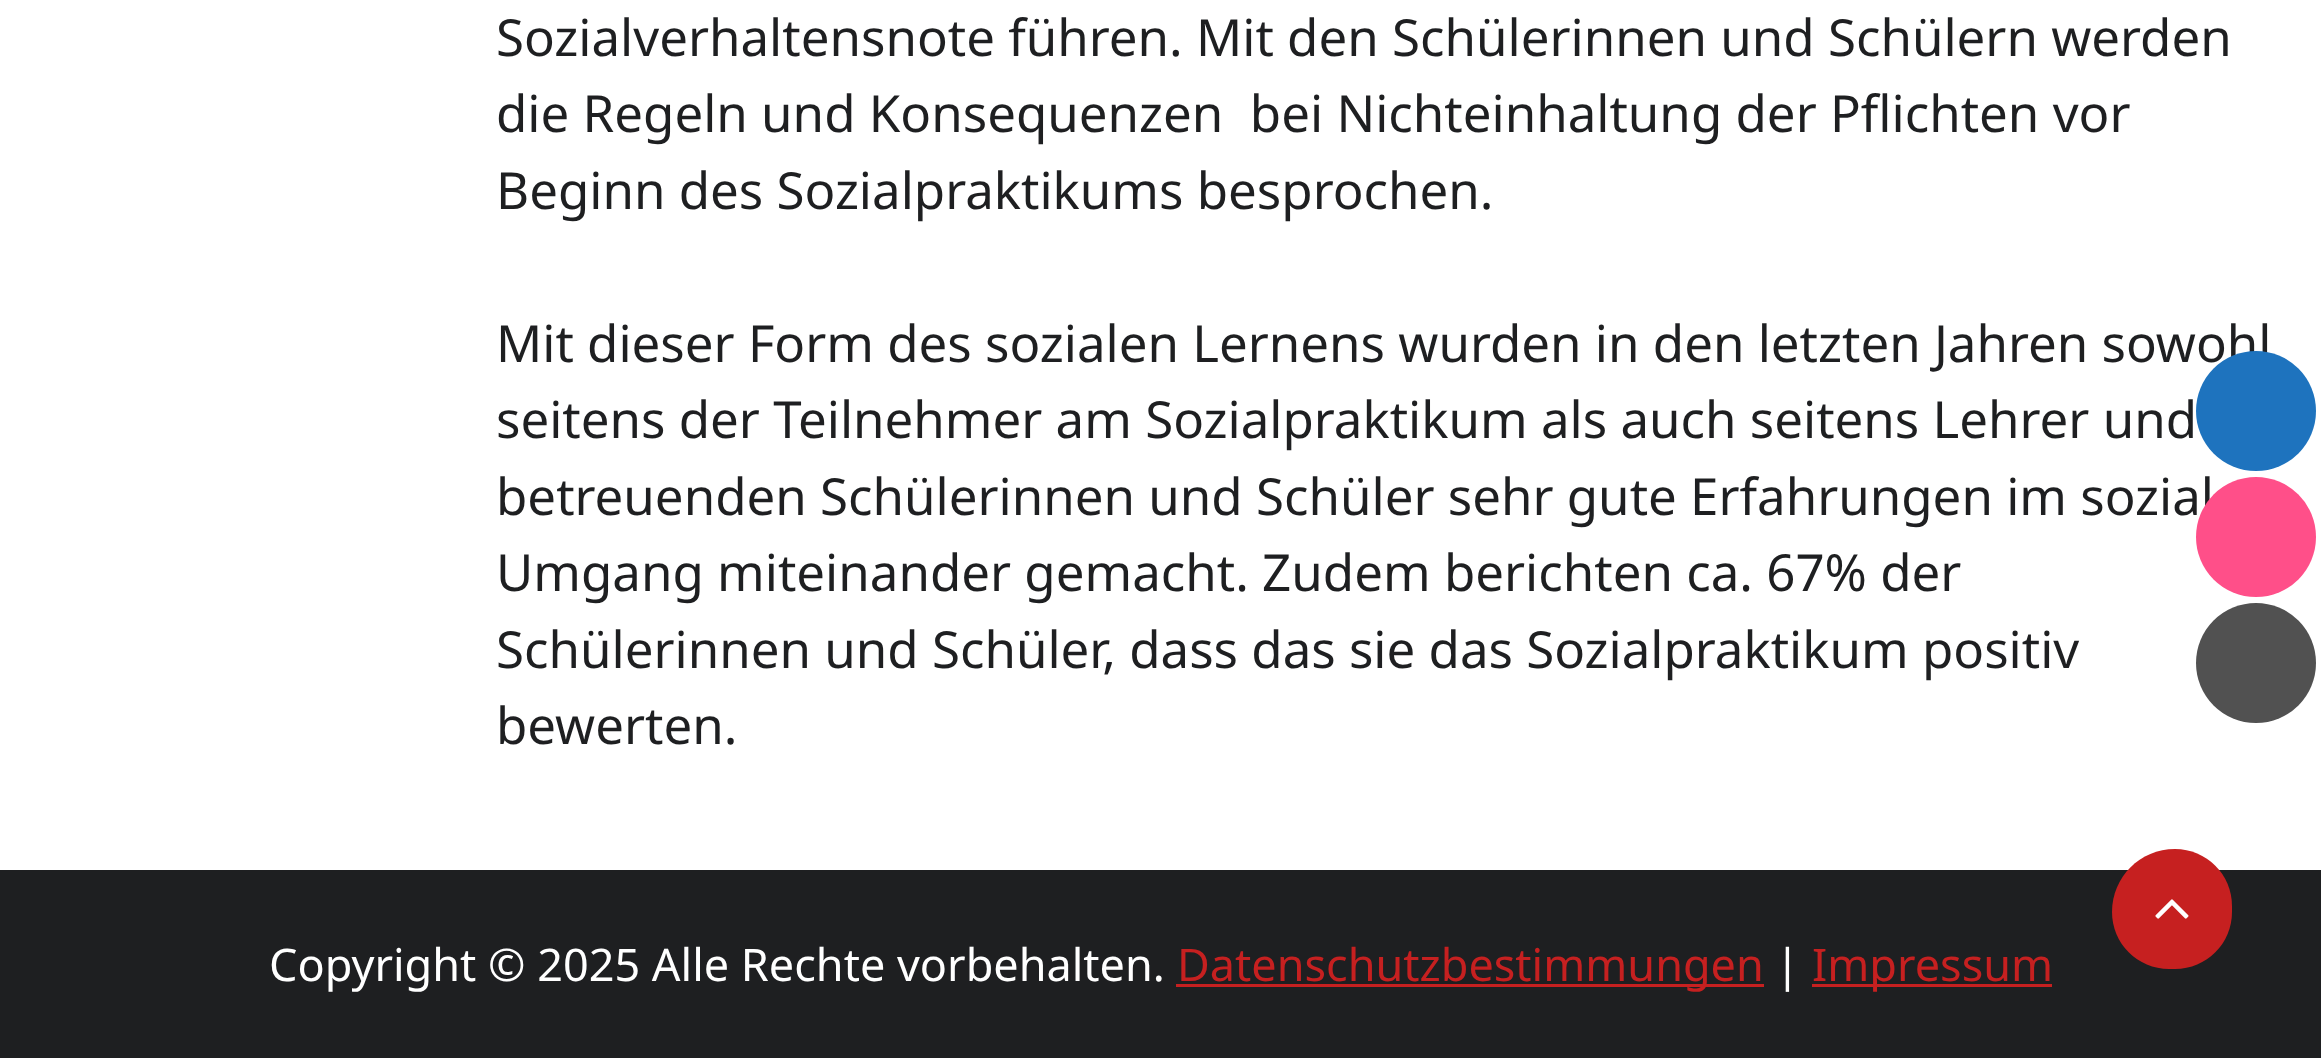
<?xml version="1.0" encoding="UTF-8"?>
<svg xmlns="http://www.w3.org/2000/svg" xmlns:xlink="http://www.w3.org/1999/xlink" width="2321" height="1058">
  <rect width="100%" height="100%" fill="#ffffff" />
  <circle cx="2256" cy="663" r="60" fill="#515151" />
  <rect y="870" width="2321" height="188" fill="#1e1f21" />
  <rect x="1176" y="984" width="588" height="3" fill="#c62020" />
  <rect x="1812" y="984" width="240" height="3" fill="#c62020" />
  <path d="M 2175 849 c 31.5 0 57 25.5 57 57 v 6 c 0 31.5 -25.5 57 -57 57 h -6 c -31.5 0 -57 -25.5 -57 -57 c 0 -35 28 -63 63 -63 z" fill="#c62020" />
  <image x="2155" y="899" width="34" height="20" xlink:href="image1.png" />
  <text x="496" y="56" style="font-family: Noto Sans; font-size: 51px; fill: #1e1f21">Sozialverhaltensnote führen. Mit den Schülerinnen und Schülern werden</text>
  <text x="496" y="132" style="font-family: Noto Sans; font-size: 51px; fill: #1e1f21" xml:space="preserve">die Regeln und Konsequenzen  bei Nichteinhaltung der Pflichten vor</text>
  <text x="496" y="209" style="font-family: Noto Sans; font-size: 51px; fill: #1e1f21">Beginn des Sozialpraktikums besprochen.</text>
  <text x="496" y="362" style="font-family: Noto Sans; font-size: 51px; fill: #1e1f21">Mit dieser Form des sozialen Lernens wurden in den letzten Jahren sowohl</text>
  <text x="496" y="438" style="font-family: Noto Sans; font-size: 51px; fill: #1e1f21">seitens der Teilnehmer am Sozialpraktikum als auch seitens Lehrer und</text>
  <text x="496" y="515" style="font-family: Noto Sans; font-size: 51px; fill: #1e1f21">betreuenden Schülerinnen und Schüler sehr gute Erfahrungen im sozial</text>
  <text x="496" y="591" style="font-family: Noto Sans; font-size: 51px; fill: #1e1f21">Umgang miteinander gemacht. Zudem berichten ca. 67% der</text>
  <text x="496" y="668" style="font-family: Noto Sans; font-size: 51px; fill: #1e1f21">Schülerinnen und Schüler, dass das sie das Sozialpraktikum positiv</text>
  <text x="496" y="744" style="font-family: Noto Sans; font-size: 51px; fill: #1e1f21">bewerten.</text>
  <circle cx="2256" cy="411" r="60" fill="#1e73be" />
  <circle cx="2256" cy="537" r="60" fill="#ff4f89" />
  <text x="269" y="981" style="font-family: Noto Sans; font-size: 45px; fill: #ffffff">Copyright © 2025 Alle Rechte vorbehalten.</text>
  <text x="1177" y="981" style="font-family: Noto Sans; font-size: 45px; fill: #c62020">Datenschutzbestimmungen</text>
  <text x="1775" y="981" style="font-family: Noto Sans; font-size: 45px; fill: #ffffff">|</text>
  <text x="1812" y="981" style="font-family: Noto Sans; font-size: 45px; fill: #c62020">Impressum</text>
</svg>
